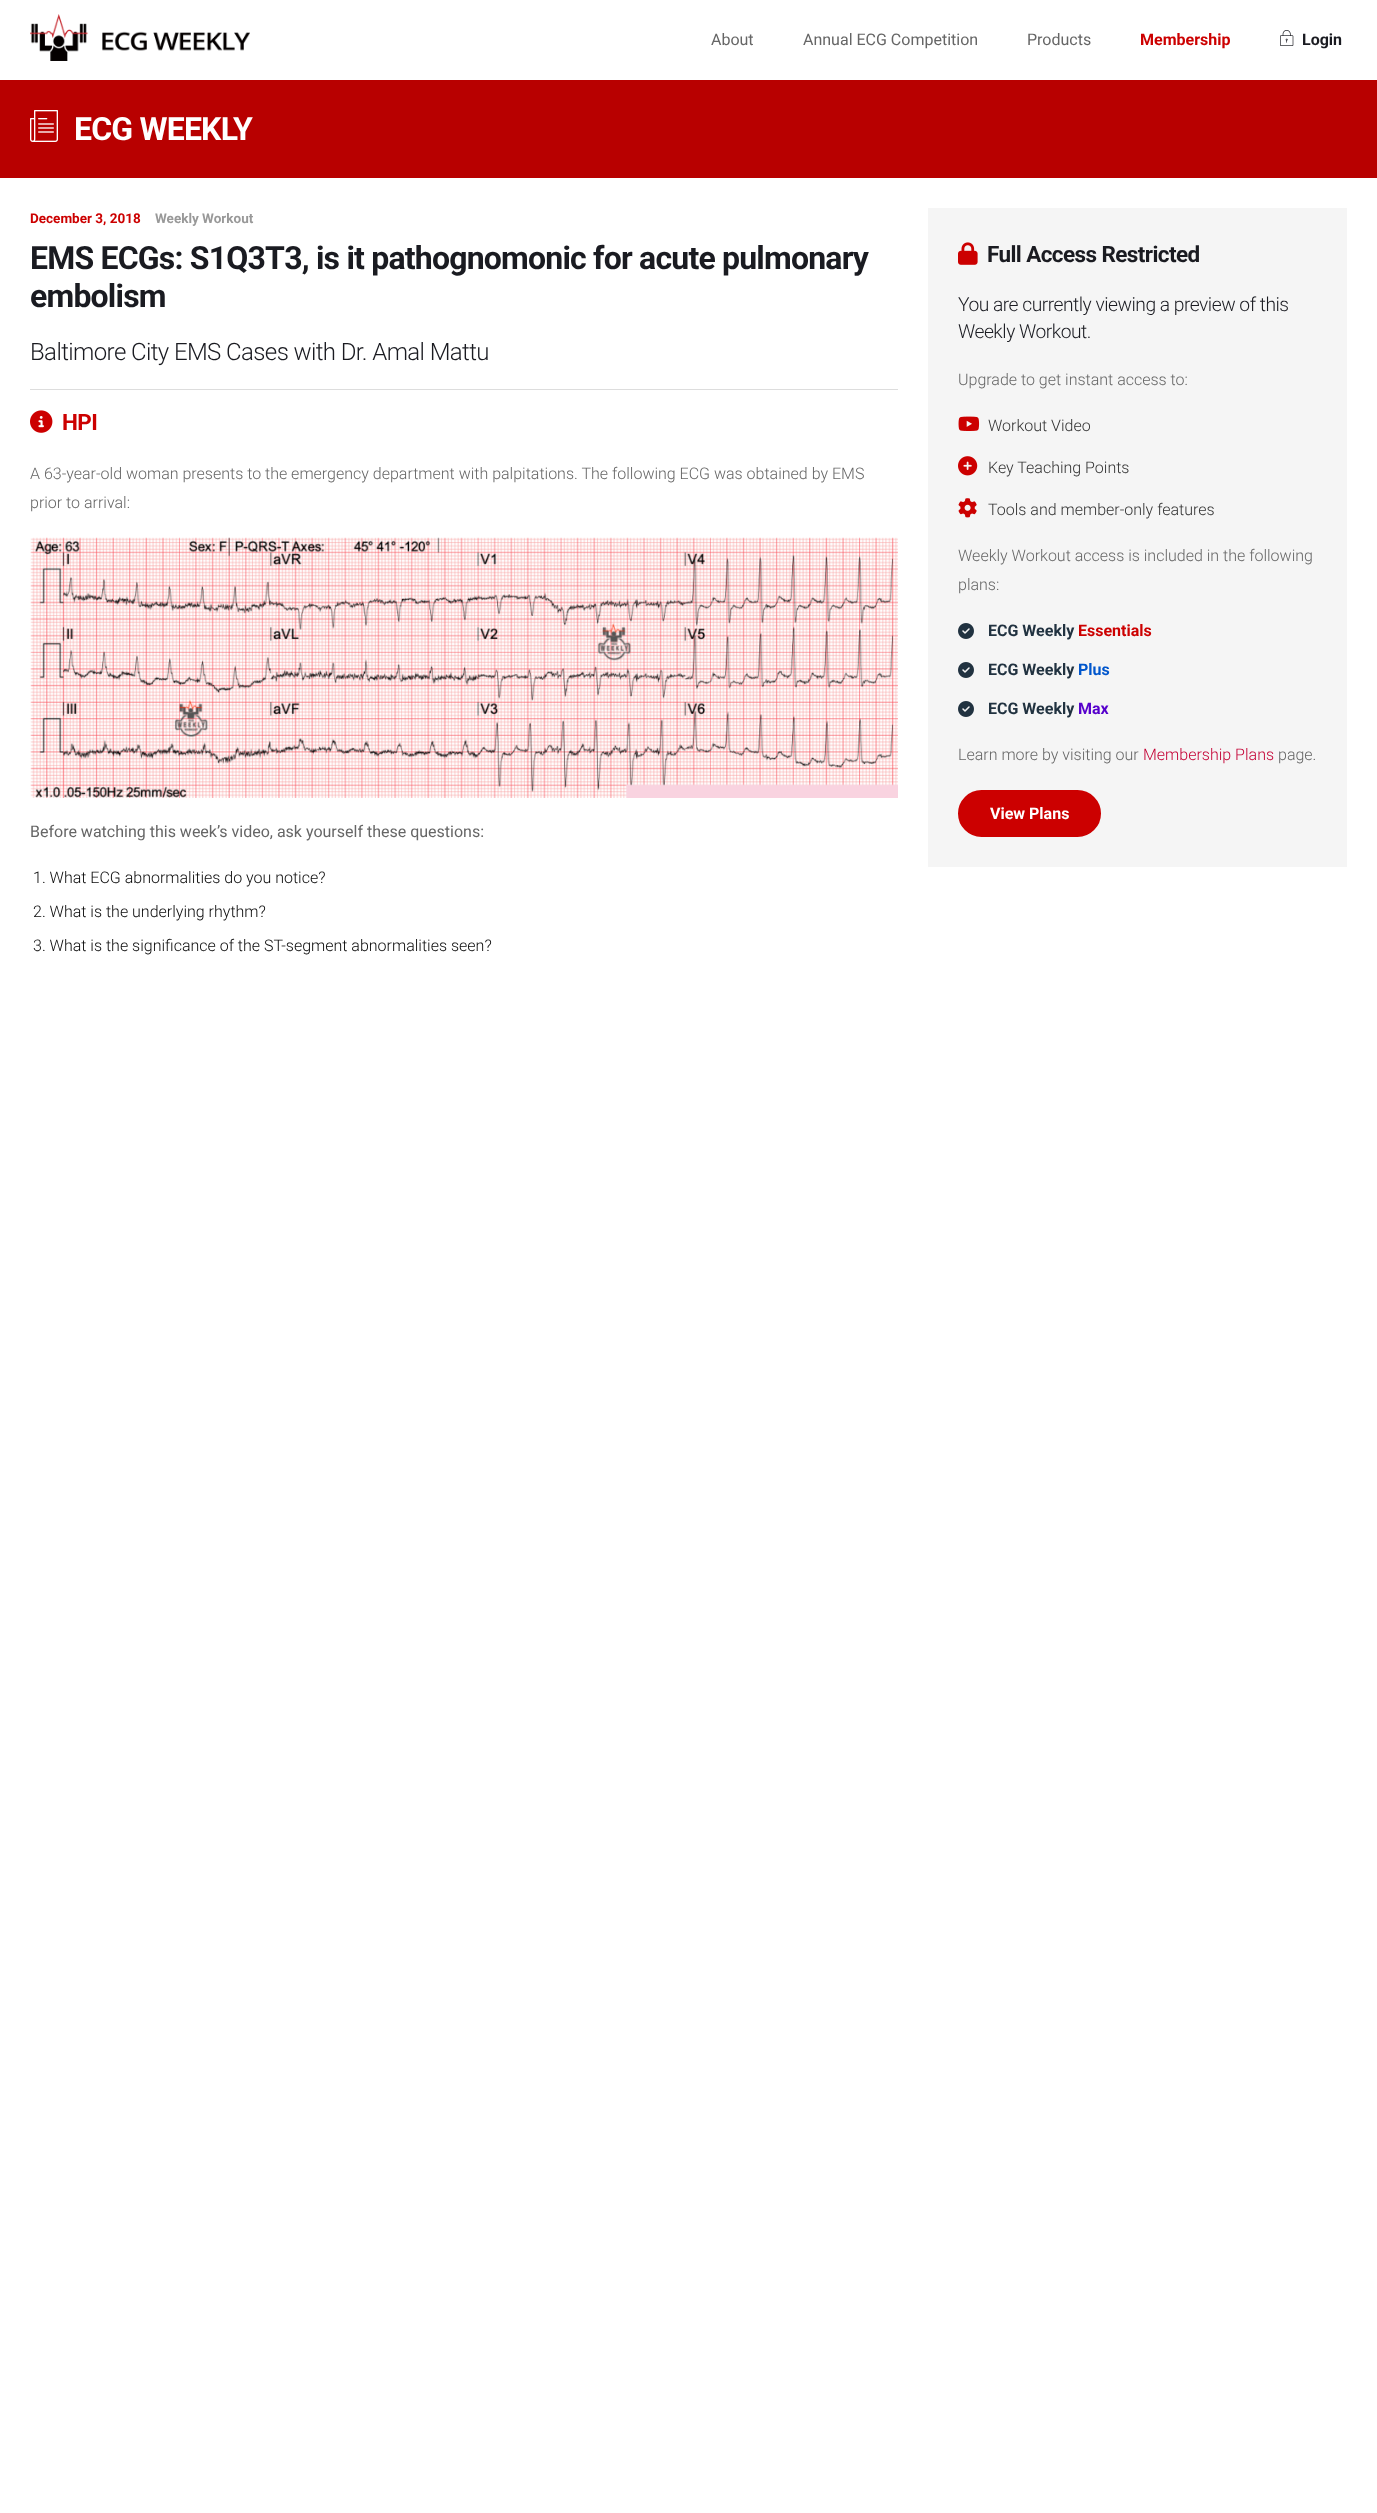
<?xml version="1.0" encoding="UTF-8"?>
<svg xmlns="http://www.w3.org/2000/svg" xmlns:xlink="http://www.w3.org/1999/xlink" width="1377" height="2513">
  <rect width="100%" height="100%" fill="#ffffff" />
  <image x="30" y="14" width="220" height="47" xlink:href="image1.png" />
  <image x="1280" y="30" width="14" height="16" xlink:href="image2.png" />
  <rect y="80" width="1377" height="98" fill="#b80000" />
  <image x="30" y="110" width="28" height="32" xlink:href="image3.png" />
  <rect x="30" y="389" width="868" height="1" fill="#dddddd" />
  <image x="30" y="410" width="23" height="23" xlink:href="image4.png" />
  <image x="30" y="537" width="868" height="261" xlink:href="image5.png" />
  <rect x="928" y="208" width="419" height="659" fill="#f5f5f5" />
  <image x="958" y="242" width="20" height="23" xlink:href="image6.png" />
  <image x="958" y="416" width="22" height="15" xlink:href="image7.png" />
  <image x="958" y="456" width="20" height="20" xlink:href="image8.png" />
  <image x="958" y="498" width="19" height="20" xlink:href="image9.png" />
  <image x="958" y="623" width="16" height="16" xlink:href="image10.png" />
  <image x="958" y="662" width="16" height="16" xlink:href="image10.png" />
  <image x="958" y="701" width="16" height="16" xlink:href="image10.png" />
  <rect x="959" y="791" width="141" height="45" rx="22.5" fill="#cc0000" stroke="#cc0000" stroke-width="2" />
  <text x="711" y="45" style="font-family: Roboto; font-size: 16px; fill: #666666">About</text>
  <text x="803" y="45" style="font-family: Roboto; font-size: 16px; fill: #666666">Annual ECG Competition</text>
  <text x="1027" y="45" style="font-family: Roboto; font-size: 16px; fill: #666666">Products</text>
  <text x="1140" y="45" style="font-family: Roboto; font-size: 16px; font-weight: bold; fill: #cc0000">Membership</text>
  <text x="1302" y="45" style="font-family: Roboto; font-size: 16px; font-weight: bold; fill: #1a1b21">Login</text>
  <text x="74" y="140" style="font-family: Roboto; font-size: 32px; font-weight: bold; letter-spacing: -0.8px; fill: #ffffff">ECG WEEKLY</text>
  <text x="30" y="223" style="font-family: Roboto; font-size: 13.5px; font-weight: bold; fill: #cc0000">December 3, 2018</text>
  <text x="155" y="223" style="font-family: Roboto; font-size: 13.5px; font-weight: bold; fill: #999999">Weekly Workout</text>
  <text x="30" y="269" style="font-family: Roboto; font-size: 32px; font-weight: bold; letter-spacing: -0.8px; fill: #1a1b21">EMS ECGs: S1Q3T3, is it pathognomonic for acute pulmonary</text>
  <text x="30" y="307" style="font-family: Roboto; font-size: 32px; font-weight: bold; letter-spacing: -0.8px; fill: #1a1b21">embolism</text>
  <text x="30" y="360" style="font-family: Roboto; font-size: 24px; font-weight: 300; letter-spacing: -0.6px; fill: #1a1b21">Baltimore City EMS Cases with Dr. Amal Mattu</text>
  <text x="62" y="430" style="font-family: Roboto; font-size: 22.5px; font-weight: bold; letter-spacing: -0.6px; fill: #cc0000">HPI</text>
  <text x="30" y="479" style="font-family: Roboto; font-size: 16px; font-weight: 300; fill: #666666">A 63-year-old woman presents to the emergency department with palpitations. The following ECG was obtained by EMS</text>
  <text x="30" y="508" style="font-family: Roboto; font-size: 16px; font-weight: 300; fill: #666666">prior to arrival:</text>
  <text x="30" y="837" style="font-family: Roboto; font-size: 16px; fill: #666666">Before watching this week’s video, ask yourself these questions:</text>
  <text x="33" y="883" style="font-family: Roboto; font-size: 16px; font-weight: 300; fill: #0a0a0a">1. What ECG abnormalities do you notice?</text>
  <text x="33" y="917" style="font-family: Roboto; font-size: 16px; font-weight: 300; fill: #0a0a0a">2. What is the underlying rhythm?</text>
  <text x="33" y="951" style="font-family: Roboto; font-size: 16px; font-weight: 300; fill: #0a0a0a">3. What is the significance of the ST-segment abnormalities seen?</text>
  <text x="987" y="262" style="font-family: Roboto; font-size: 22.5px; font-weight: bold; letter-spacing: -0.6px; fill: #1a1b21">Full Access Restricted</text>
  <text x="958" y="311" style="font-family: Roboto; font-size: 19.25px; font-weight: 300; letter-spacing: -0.5px; fill: #1a1b21">You are currently viewing a preview of this</text>
  <text x="958" y="338" style="font-family: Roboto; font-size: 19.25px; font-weight: 300; letter-spacing: -0.5px; fill: #1a1b21">Weekly Workout.</text>
  <text x="958" y="385" style="font-family: Roboto; font-size: 16px; font-weight: 300; fill: #666666">Upgrade to get instant access to:</text>
  <text x="988" y="431" style="font-family: Roboto; font-size: 16px; font-weight: 300; fill: #333333">Workout Video</text>
  <text x="988" y="473" style="font-family: Roboto; font-size: 16px; font-weight: 300; fill: #333333">Key Teaching Points</text>
  <text x="988" y="515" style="font-family: Roboto; font-size: 16px; font-weight: 300; fill: #333333">Tools and member-only features</text>
  <text x="958" y="561" style="font-family: Roboto; font-size: 16px; font-weight: 300; fill: #666666">Weekly Workout access is included in the following</text>
  <text x="958" y="590" style="font-family: Roboto; font-size: 16px; font-weight: 300; fill: #666666">plans:</text>
  <text x="988" y="636" style="font-family: Roboto; font-size: 16px; font-weight: bold; fill: #213240">ECG Weekly</text>
  <text x="1078" y="636" style="font-family: Roboto; font-size: 16px; font-weight: bold; fill: #cc0000">Essentials</text>
  <text x="988" y="675" style="font-family: Roboto; font-size: 16px; font-weight: bold; fill: #213240">ECG Weekly</text>
  <text x="1078" y="675" style="font-family: Roboto; font-size: 16px; font-weight: bold; fill: #0056cc">Plus</text>
  <text x="988" y="714" style="font-family: Roboto; font-size: 16px; font-weight: bold; fill: #213240">ECG Weekly</text>
  <text x="1078" y="714" style="font-family: Roboto; font-size: 16px; font-weight: bold; fill: #5600cc">Max</text>
  <text x="958" y="760" style="font-family: Roboto; font-size: 16px; font-weight: 300; fill: #666666">Learn more by visiting our</text>
  <text x="1143" y="760" style="font-family: Roboto; font-size: 16px; font-weight: 300; fill: #c40034">Membership Plans</text>
  <text x="1278" y="760" style="font-family: Roboto; font-size: 16px; font-weight: 300; fill: #666666">page.</text>
  <text x="990" y="819" style="font-family: Roboto; font-size: 16px; font-weight: bold; fill: #ffffff">View Plans</text>
</svg>
